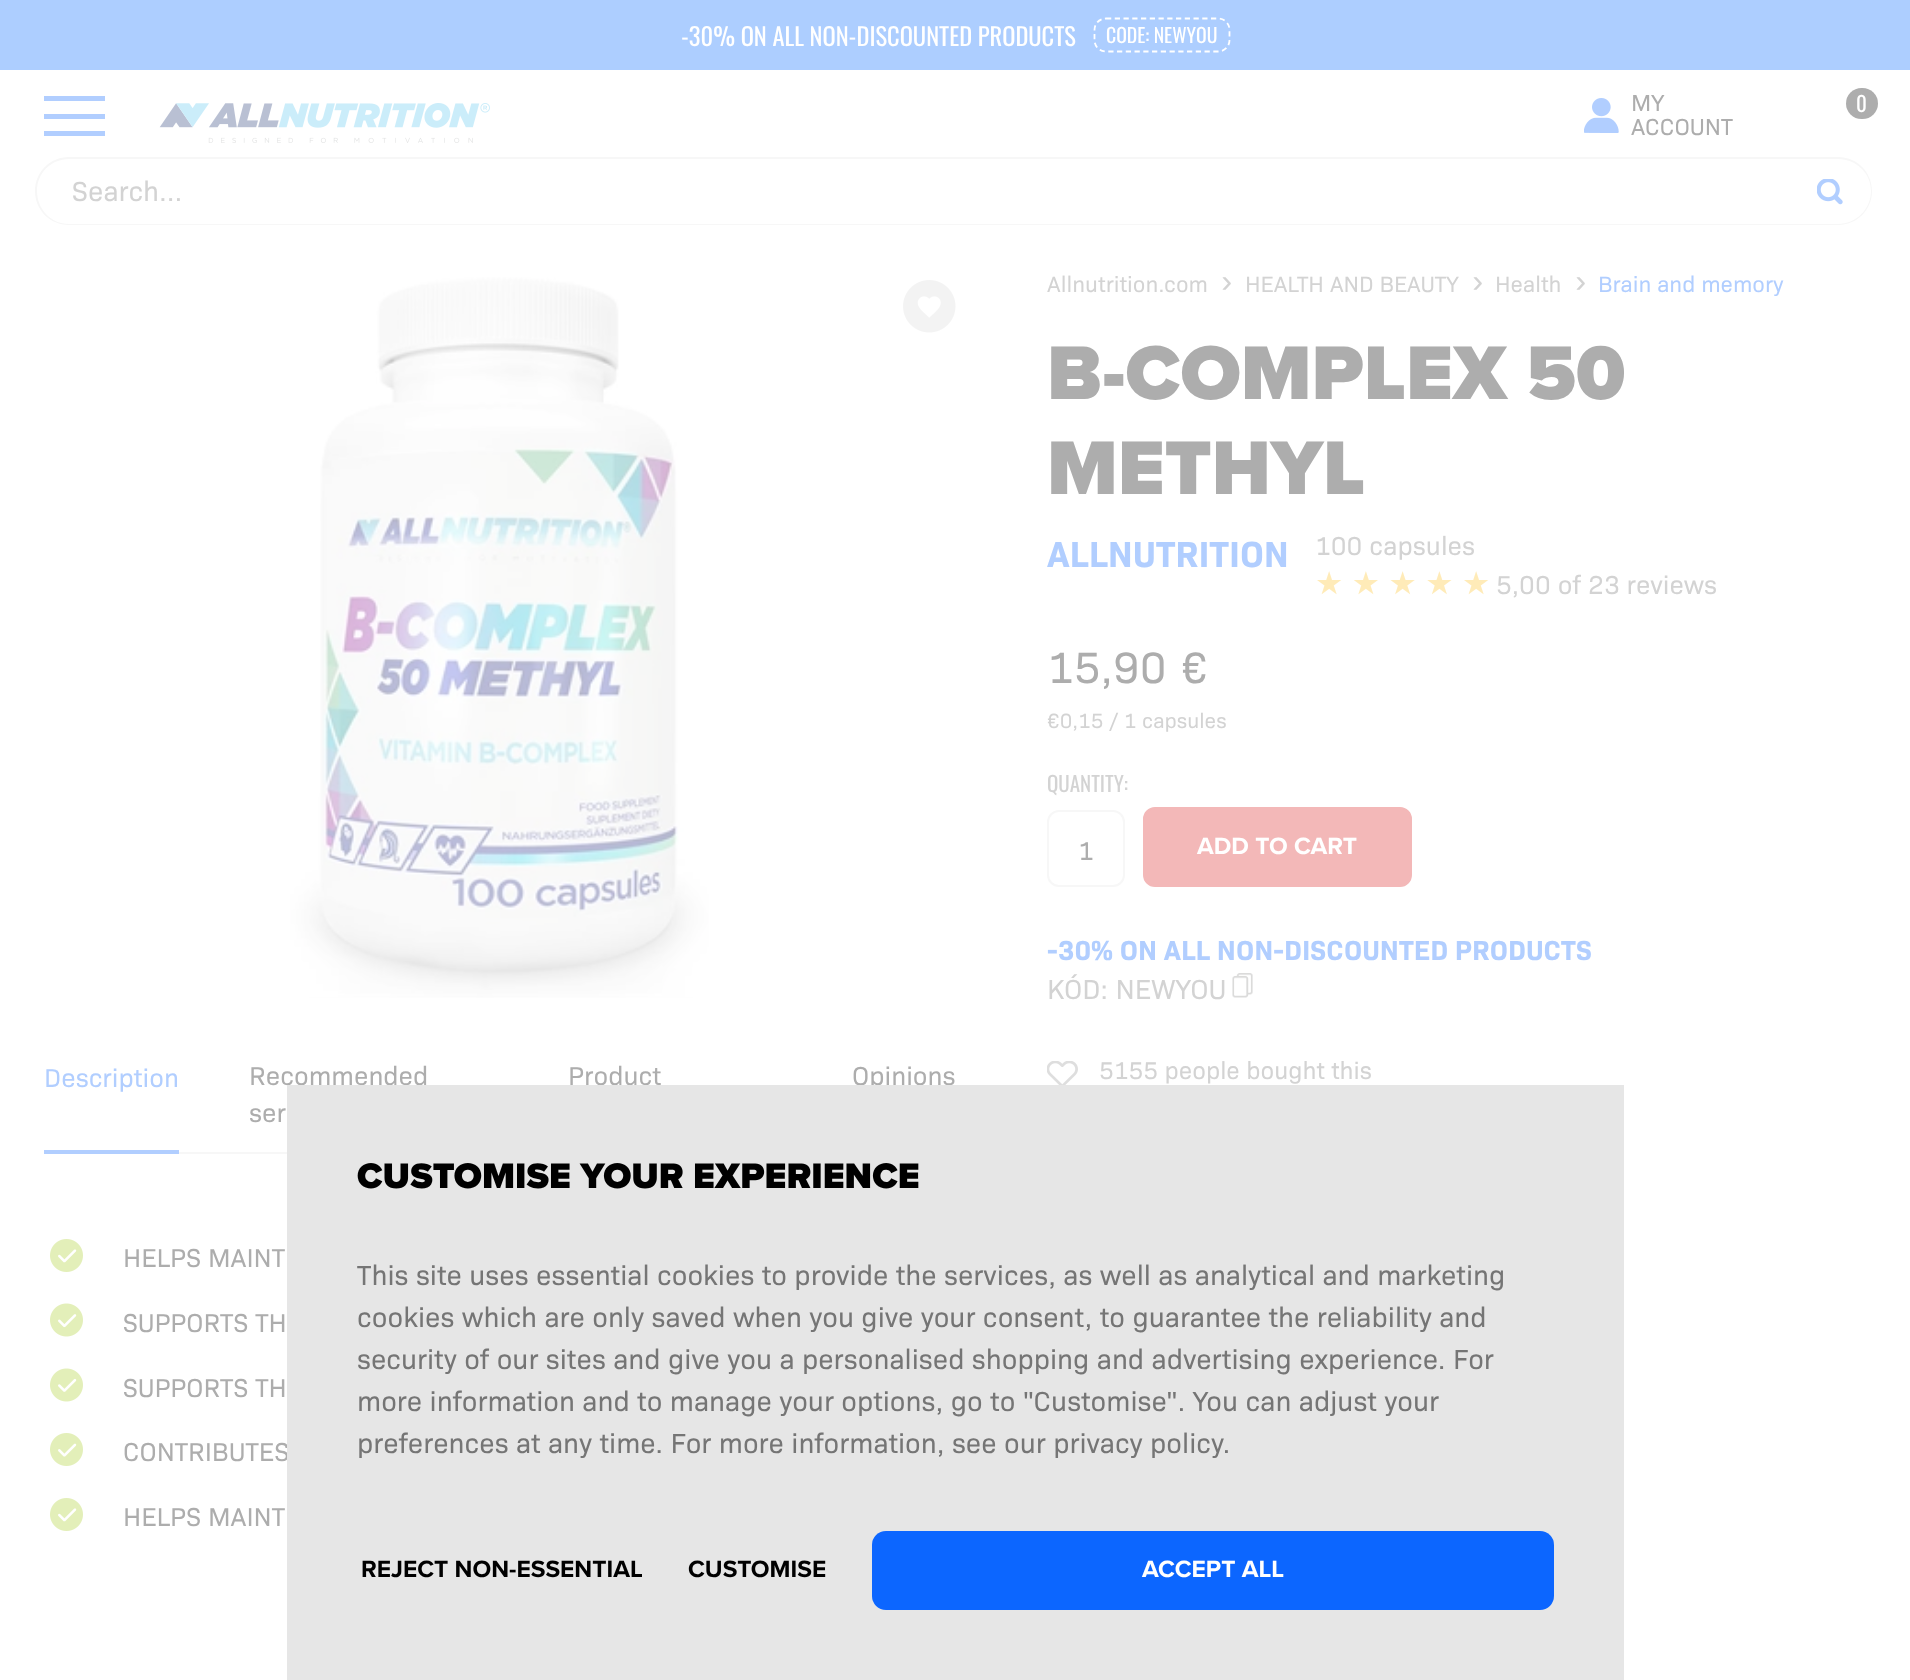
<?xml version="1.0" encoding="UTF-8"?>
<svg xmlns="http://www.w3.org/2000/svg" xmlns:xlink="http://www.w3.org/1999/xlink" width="1910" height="1680">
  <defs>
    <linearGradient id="g1" gradientUnits="userSpaceOnUse" x1="1315" y1="581" x2="1489" y2="581"><stop offset="1" stop-color="#ffebb8" /><stop offset="1" stop-color="#f3f3f3" /></linearGradient>
  </defs>
  <rect width="100%" height="100%" fill="#ffffff" />
  <rect width="1910" height="70" fill="#adceff" />
  <path d="M 1106 18.5 h 112 c 6.5 0 11.5 5 11.5 11.5 v 10 c 0 6.5 -5 11.5 -11.5 11.5 h -112 c -6.5 0 -11.5 -5 -11.5 -11.5 v -10 c 0 -6.5 5 -11.5 11.5 -11.5 z" fill="none" stroke="#ffffff" stroke-width="1.8" stroke-dasharray="5.25 3.5" />
  <rect x="44" y="114" width="61" height="5" fill="#b1ceff" />
  <rect x="44" y="96" width="61" height="5" fill="#b1ceff" />
  <rect x="44" y="131" width="61" height="5" fill="#b1ceff" />
  <image x="159" y="103" width="331" height="40" xlink:href="image1.png" />
  <image x="1584" y="98" width="35" height="35" xlink:href="image2.png" />
  <rect x="1846" y="88" width="32" height="31" rx="15.5" fill="#adadad" />
  <path d="M 69 157 h 1737 v 68 h -1737 c -19 0 -34 -15 -34 -34 c 0 -19 15 -34 34 -34 z m 0 2 h 1737 v 65 h -1737 c -18 0 -32 -15 -32 -33 c 0 -18 14 -32 32 -32 z" fill="#f7f7f7" fill-rule="evenodd" />
  <path d="M 1804 158 h 35 c 19 0 34 15 34 34 c 0 19 -15 34 -34 34 h -35 z" fill="#ffffff" />
  <image x="1817" y="179" width="26" height="26" xlink:href="image3.png" />
  <path d="M 1804 157 h 34 c 19 0 34 15 34 34 c 0 19 -15 34 -34 34 h -34 z m 0 2 h 34 c 18 0 33 14 33 32 c 0 18 -15 33 -33 33 h -34 z" fill="#f7f7f7" fill-rule="evenodd" />
  <rect x="1048" y="811" width="76" height="75" rx="11" fill="none" stroke="#f7f7f7" stroke-width="2" />
  <rect x="1144" y="808" width="267" height="78" rx="11" fill="#f3b8b8" stroke="#f3b8b8" stroke-width="2" />
  <image x="1232" y="973" width="21" height="25" xlink:href="image4.png" />
  <image x="1047" y="1061" width="31" height="24" xlink:href="image5.png" />
  <image x="290" y="277" width="419" height="721" xlink:href="image6.png" />
  <image x="903" y="280" width="53" height="53" xlink:href="image7.png" />
  <rect x="179" y="1152" width="108" height="2" fill="#f7f7f7" />
  <rect x="44" y="1150" width="135" height="4" fill="#b1ceff" />
  <image x="50" y="1239" width="33" height="33" xlink:href="image8.png" />
  <image x="50" y="1303" width="33" height="34" xlink:href="image9.png" />
  <image x="50" y="1368" width="33" height="34" xlink:href="image10.png" />
  <image x="50" y="1433" width="33" height="33" xlink:href="image11.png" />
  <image x="50" y="1498" width="33" height="33" xlink:href="image8.png" />
  <text x="681" y="46" style="font-family: Oswald; font-size: 24.5px; fill: #ffffff">-30% ON ALL NON-DISCOUNTED PRODUCTS</text>
  <text x="1106" y="43" style="font-family: Oswald; font-size: 19.75px; fill: #ffffff">CODE: NEWYOU</text>
  <text x="1631" y="111" style="font-family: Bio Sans; font-size: 23.5px; fill: #adadad">MY</text>
  <text x="1631" y="135" style="font-family: Bio Sans; font-size: 23.5px; fill: #adadad">ACCOUNT</text>
  <text x="1856" y="112" style="font-family: Oswald; font-size: 21px; fill: #ffffff">0</text>
  <text x="72" y="201" style="font-family: Bio Sans; font-size: 28px; fill: #d3d3d3">Search...</text>
  <text x="1047" y="292" style="font-family: Bio Sans; font-size: 22.5px; fill: #d3d3d3">Allnutrition.com</text>
  <text x="1217" y="292" style="font-family: Liberation Mono; font-size: 32px; fill: #d3d3d3">›</text>
  <text x="1245" y="292" style="font-family: Bio Sans; font-size: 22.5px; fill: #d3d3d3">HEALTH AND BEAUTY</text>
  <text x="1468" y="292" style="font-family: Liberation Mono; font-size: 32px; fill: #d3d3d3">›</text>
  <text x="1495" y="292" style="font-family: Bio Sans; font-size: 22.5px; fill: #d3d3d3">Health</text>
  <text x="1571" y="292" style="font-family: Liberation Mono; font-size: 32px; fill: #d3d3d3">›</text>
  <text x="1598" y="292" style="font-family: Bio Sans; font-size: 22.5px; fill: #b1ceff">Brain and memory</text>
  <text x="1047" y="399" style="font-family: Proxima Nova; font-size: 78.75px; font-weight: 900; fill: #adadad">B-COMPLEX 50</text>
  <text x="1047" y="494" style="font-family: Proxima Nova; font-size: 78.75px; font-weight: 900; fill: #adadad">METHYL</text>
  <text x="1047" y="567" style="font-family: Bio Sans; font-size: 36.75px; font-weight: bold; fill: #b1ceff">ALLNUTRITION</text>
  <text x="1315" y="555" style="font-family: Bio Sans; font-size: 26.25px; fill: #d3d3d3">100 capsules</text>
  <text x="1315" y="594" word-spacing="-1.5" style="font-family: DejaVu Sans; font-size: 31.5px; fill: url(#g1)">★ ★ ★ ★ ★</text>
  <text x="1496" y="594" style="font-family: Bio Sans; font-size: 26.25px; fill: #d3d3d3">5,00 of 23 reviews</text>
  <text x="1047" y="683" style="font-family: Bio Sans; font-size: 44.5px; fill: #adadad">15,90</text>
  <text x="1181" y="683" style="font-family: Bio Sans; font-size: 44.5px; fill: #adadad">€</text>
  <text x="1047" y="728" style="font-family: Bio Sans; font-size: 21px; fill: #d3d3d3">€0,15 / 1 capsules</text>
  <text x="1047" y="792" style="font-family: Oswald; font-size: 21px; fill: #d3d3d3">QUANTITY:</text>
  <text x="1078" y="860" style="font-family: Bio Sans; font-size: 26.25px; fill: #adadad">1</text>
  <text x="1197" y="854" style="font-family: Proxima Nova; font-size: 24.5px; font-weight: bold; fill: #ffffff">ADD TO CART</text>
  <text x="1047" y="960" style="font-family: Bio Sans; font-size: 28px; font-weight: bold; fill: #b1ceff">-30% ON ALL NON-DISCOUNTED PRODUCTS</text>
  <text x="1047" y="999" style="font-family: Bio Sans; font-size: 28px; fill: #d3d3d3">KÓD: NEWYOU</text>
  <text x="1099" y="1079" style="font-family: Bio Sans; font-size: 24.5px; fill: #d3d3d3">5155 people bought this</text>
  <text x="44" y="1087" style="font-family: Bio Sans; font-size: 26.25px; fill: #b1ceff">Description</text>
  <text x="249" y="1085" style="font-family: Bio Sans; font-size: 26.25px; fill: #adadad">Recommended</text>
  <text x="249" y="1122" style="font-family: Bio Sans; font-size: 26.25px; fill: #adadad">ser</text>
  <text x="568" y="1085" style="font-family: Bio Sans; font-size: 26.25px; fill: #adadad">Product</text>
  <text x="852" y="1085" style="font-family: Bio Sans; font-size: 26.25px; fill: #adadad">Opinions</text>
  <text x="123" y="1267" style="font-family: Bio Sans; font-size: 26.25px; fill: #adadad">HELPS MAINT</text>
  <text x="123" y="1332" style="font-family: Bio Sans; font-size: 26.25px; fill: #adadad">SUPPORTS TH</text>
  <text x="123" y="1397" style="font-family: Bio Sans; font-size: 26.25px; fill: #adadad">SUPPORTS TH</text>
  <text x="123" y="1461" style="font-family: Bio Sans; font-size: 26.25px; fill: #adadad">CONTRIBUTES</text>
  <text x="123" y="1526" style="font-family: Bio Sans; font-size: 26.25px; fill: #adadad">HELPS MAINT</text>
  <rect x="287" y="1085" width="1337" height="595" fill="#e6e6e6" />
  <text x="357" y="1188" style="font-family: Proxima Nova; font-size: 36.75px; font-weight: 900; fill: #000000">CUSTOMISE YOUR EXPERIENCE</text>
  <text x="357" y="1285" style="font-family: Bio Sans; font-size: 28px; fill: #757575">This site uses essential cookies to provide the services, as well as analytical and marketing</text>
  <text x="357" y="1327" style="font-family: Bio Sans; font-size: 28px; fill: #757575">cookies which are only saved when you give your consent, to guarantee the reliability and</text>
  <text x="357" y="1369" style="font-family: Bio Sans; font-size: 28px; fill: #757575">security of our sites and give you a personalised shopping and advertising experience. For</text>
  <text x="357" y="1411" style="font-family: Bio Sans; font-size: 28px; fill: #757575">more information and to manage your options, go to "Customise". You can adjust your</text>
  <text x="357" y="1453" style="font-family: Bio Sans; font-size: 28px; fill: #757575">preferences at any time. For more information, see our privacy policy.</text>
  <text x="361" y="1577" style="font-family: Proxima Nova; font-size: 24.5px; font-weight: bold; fill: #000000">REJECT NON-ESSENTIAL</text>
  <text x="688" y="1577" style="font-family: Proxima Nova; font-size: 24.5px; font-weight: bold; fill: #000000">CUSTOMISE</text>
  <rect x="872" y="1531" width="682" height="79" rx="14" fill="#0c66ff" />
  <text x="1142" y="1577" style="font-family: Proxima Nova; font-size: 24.5px; font-weight: bold; fill: #ffffff">ACCEPT ALL</text>
</svg>
